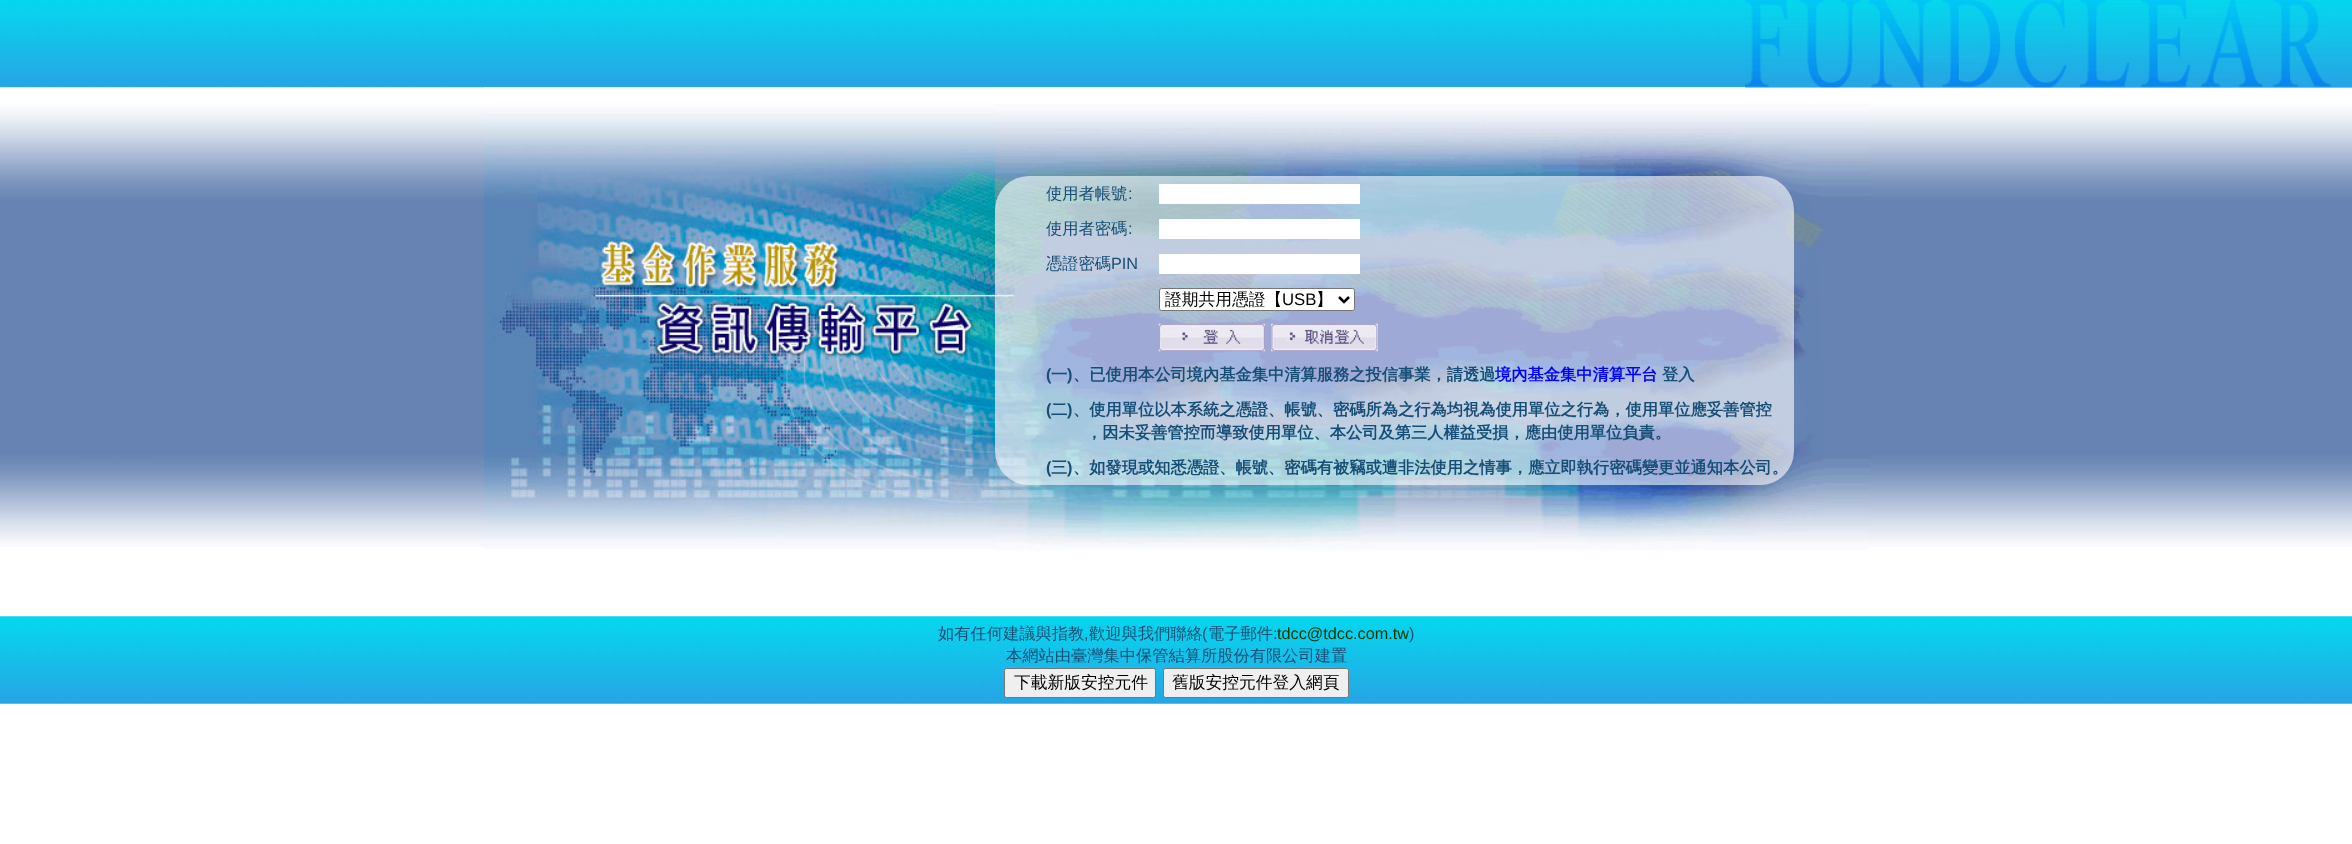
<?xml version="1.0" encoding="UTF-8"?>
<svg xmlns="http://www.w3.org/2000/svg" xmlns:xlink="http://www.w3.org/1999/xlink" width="2352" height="844">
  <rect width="100%" height="100%" fill="#ffffff" />
  <image x="0" y="0" width="2352" height="88" xlink:href="image1.png" />
  <image x="0" y="87" width="2352" height="460" xlink:href="image3.png" />
  <image x="483" y="87" width="1387" height="1" xlink:href="image4.png" />
  <image x="995" y="87" width="875" height="465" xlink:href="image6.png" />
  <image x="1745" y="0" width="607" height="88" xlink:href="image2.png" />
  <image x="483" y="87" width="512" height="462" xlink:href="image5.png" />
  <rect x="995" y="176" width="799" height="309" rx="34" fill="#ffffff" fill-opacity="0.6" />
  <rect x="1159" y="184" width="201" height="20" fill="#ffffff" />
  <rect x="1159" y="219" width="201" height="20" fill="#ffffff" />
  <rect x="1159" y="254" width="201" height="20" fill="#ffffff" />
  <rect x="1159.5" y="288.5" width="195" height="22" rx="2" fill="#ffffff" stroke="#767676" />
  <path d="M 1339 297 l 5 5 l 5 -5" fill="none" stroke="#000000" stroke-width="2.5" />
  <image x="1158" y="323" width="107" height="29" xlink:href="image7.png" />
  <rect x="1271" y="324" width="107" height="27" fill="#efefef" />
  <image x="1271" y="323" width="107" height="29" xlink:href="image8.png" />
  <image x="0" y="616" width="2352" height="88" xlink:href="image9.png" />
  <rect x="1004.5" y="668.5" width="151" height="29" rx="2" fill="#efefef" stroke="#767676" />
  <rect x="1163.5" y="668.5" width="185" height="29" rx="2" fill="#efefef" stroke="#767676" />
  <text x="1046" y="199" style="font-family: WenQuanYi Zen Hei; font-size: 16.25px; font-weight: 500; fill: #164e76">使用者帳號</text>
  <text x="1128" y="199" style="font-family: Liberation Sans; font-size: 16.25px; fill: #164e76">:</text>
  <text x="1046" y="234" style="font-family: WenQuanYi Zen Hei; font-size: 16.25px; font-weight: 500; fill: #164e76">使用者密碼</text>
  <text x="1128" y="234" style="font-family: Liberation Sans; font-size: 16.25px; fill: #164e76">:</text>
  <text x="1046" y="269" style="font-family: WenQuanYi Zen Hei; font-size: 16.25px; font-weight: 500; fill: #164e76">憑證密碼</text>
  <text x="1111" y="269" style="font-family: Liberation Sans; font-size: 16.25px; fill: #164e76">PIN</text>
  <text x="1165" y="305" style="font-family: WenQuanYi Zen Hei; font-size: 16.75px; font-weight: 500; fill: #000000">證期共用憑證【</text>
  <text x="1282" y="305" style="font-family: Liberation Sans; font-size: 16.75px; fill: #000000">USB</text>
  <text x="1316" y="305" style="font-family: WenQuanYi Zen Hei; font-size: 16.75px; font-weight: 500; fill: #000000">】</text>
  <text x="1046" y="380" style="font-family: Liberation Sans; font-size: 16.25px; font-weight: bold; fill: #164e76">(</text>
  <text x="1051" y="380" style="font-family: WenQuanYi Zen Hei; font-size: 16.25px; font-weight: bold; fill: #164e76">一</text>
  <text x="1067" y="380" style="font-family: Liberation Sans; font-size: 16.25px; font-weight: bold; fill: #164e76">)</text>
  <text x="1073" y="380" style="font-family: WenQuanYi Zen Hei; font-size: 16.25px; font-weight: bold; fill: #164e76">、已使用本公司境內基金集中清算服務之投信事業，請透過</text>
  <text x="1495" y="380" style="font-family: WenQuanYi Zen Hei; font-size: 16.25px; font-weight: bold; fill: #0000ff">境內基金集中清算平台</text>
  <text x="1662" y="380" style="font-family: WenQuanYi Zen Hei; font-size: 16.25px; font-weight: bold; fill: #164e76">登入</text>
  <text x="1046" y="415" style="font-family: Liberation Sans; font-size: 16.25px; font-weight: bold; fill: #164e76">(</text>
  <text x="1051" y="415" style="font-family: WenQuanYi Zen Hei; font-size: 16.25px; font-weight: bold; fill: #164e76">二</text>
  <text x="1067" y="415" style="font-family: Liberation Sans; font-size: 16.25px; font-weight: bold; fill: #164e76">)</text>
  <text x="1073" y="415" style="font-family: WenQuanYi Zen Hei; font-size: 16.25px; font-weight: bold; fill: #164e76">、使用單位以本系統之憑證、帳號、密碼所為之行為均視為使用單位之行為，使用單位應妥善管控</text>
  <text x="1086" y="438" style="font-family: WenQuanYi Zen Hei; font-size: 16.25px; font-weight: bold; fill: #164e76">，因未妥善管控而導致使用單位、本公司及第三人權益受損，應由使用單位負責。</text>
  <text x="1046" y="473" style="font-family: Liberation Sans; font-size: 16.25px; font-weight: bold; fill: #164e76">(</text>
  <text x="1051" y="473" style="font-family: WenQuanYi Zen Hei; font-size: 16.25px; font-weight: bold; fill: #164e76">三</text>
  <text x="1067" y="473" style="font-family: Liberation Sans; font-size: 16.25px; font-weight: bold; fill: #164e76">)</text>
  <text x="1073" y="473" style="font-family: WenQuanYi Zen Hei; font-size: 16.25px; font-weight: bold; fill: #164e76">、如發現或知悉憑證、帳號、密碼有被竊或遭非法使用之情事，應立即執行密碼變更並通知本公司。</text>
  <text x="938" y="639" style="font-family: WenQuanYi Zen Hei; font-size: 16.25px; font-weight: 500; fill: #164e76">如有任何建議與指教</text>
  <text x="1089" y="639" style="font-family: WenQuanYi Zen Hei; font-size: 16.25px; font-weight: 500; fill: #164e76">歡迎與我們聯絡</text>
  <text x="1202" y="639" style="font-family: Liberation Sans; font-size: 16.25px; fill: #164e76">(</text>
  <text x="1208" y="639" style="font-family: WenQuanYi Zen Hei; font-size: 16.25px; font-weight: 500; fill: #164e76">電子郵件</text>
  <text x="1273" y="639" style="font-family: Liberation Sans; font-size: 16.25px; fill: #164e76">:</text>
  <text x="1277" y="639" style="font-family: Liberation Sans; font-size: 16.25px; fill: #003300">tdcc@tdcc.com.tw</text>
  <text x="1409" y="639" style="font-family: Liberation Sans; font-size: 16.25px; fill: #164e76">)</text>
  <text x="1084" y="639" style="font-family: Liberation Sans; font-size: 16.25px; fill: #164e76">,</text>
  <text x="1006" y="661" style="font-family: WenQuanYi Zen Hei; font-size: 16.25px; font-weight: 500; fill: #164e76">本網站由臺灣集中保管結算所股份有限公司建置</text>
  <text x="1014" y="688" style="font-family: WenQuanYi Zen Hei; font-size: 16.75px; font-weight: 500; fill: #000000">下載新版安控元件</text>
  <text x="1172" y="688" style="font-family: WenQuanYi Zen Hei; font-size: 16.75px; font-weight: 500; fill: #000000">舊版安控元件登入網頁</text>
</svg>
